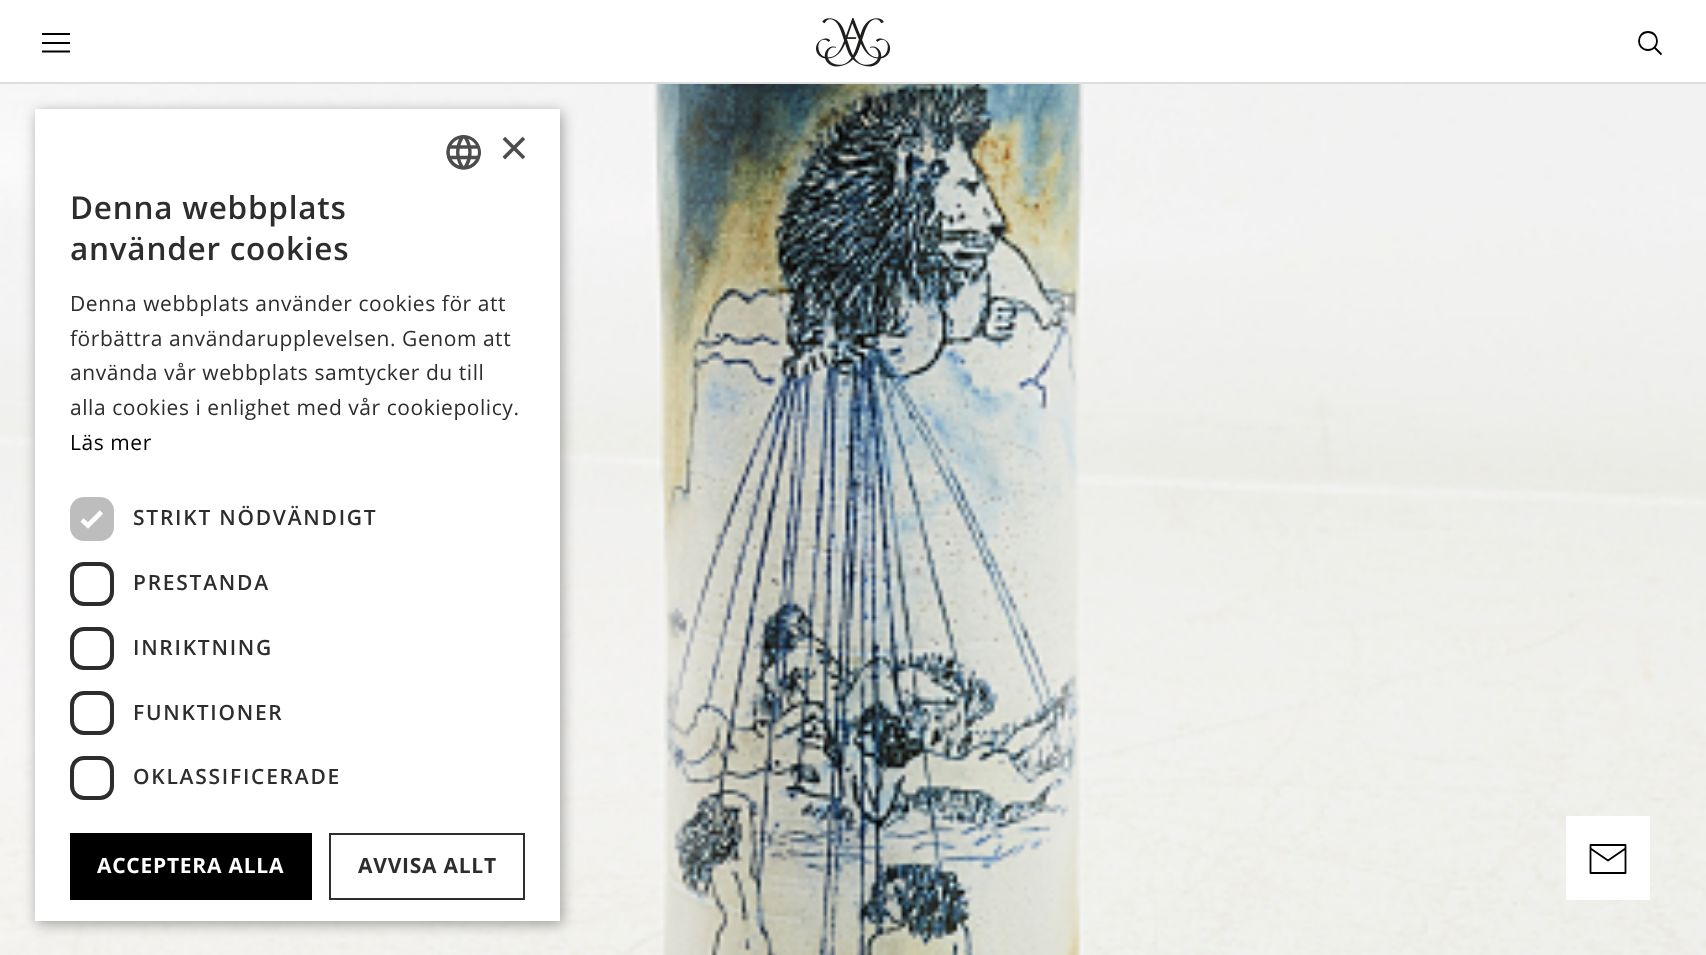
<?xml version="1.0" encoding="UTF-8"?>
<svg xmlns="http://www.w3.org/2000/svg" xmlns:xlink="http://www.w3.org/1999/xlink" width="1706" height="955">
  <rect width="100%" height="100%" fill="#ffffff" />
  <rect y="82" width="1706" height="2" fill="#dddddd" />
  <path d="M 70 34 h -28 m 28 9 h -28 m 28 8.5 h -28" fill="none" stroke="#000000" stroke-width="1.8" />
  <image x="816" y="18" width="75" height="49" xlink:href="image1.png" />
  <path d="M 1648 50 c 12 0 12 -18 0 -18 c -12 0 -12 18 0 18 z m 6.5 -2.5 l 7 7" fill="none" stroke="#000000" stroke-width="1.8" />
  <image x="0" y="84" width="1706" height="871" xlink:href="image2.png" />
  <rect x="37" y="112" width="525" height="812" fill="#000000" fill-opacity="0.35" filter="blur(7px)" />
  <rect x="35" y="109" width="525" height="812" fill="#ffffff" />
  <image x="446" y="135" width="35" height="35" xlink:href="image3.png" />
  <rect x="70" y="497" width="44" height="44" rx="14" fill="#bdbdbd" />
  <path d="M 82 520 l 6 5.5 l 13.5 -13.5" fill="none" stroke="#ffffff" stroke-width="4.6" />
  <rect x="72" y="564" width="40" height="40" rx="12" fill="none" stroke="#2d2d2d" stroke-width="4" />
  <rect x="72" y="629" width="40" height="39" rx="12" fill="none" stroke="#2d2d2d" stroke-width="4" />
  <rect x="72" y="693" width="40" height="40" rx="12" fill="none" stroke="#2d2d2d" stroke-width="4" />
  <rect x="72" y="758" width="40" height="40" rx="12" fill="none" stroke="#2d2d2d" stroke-width="4" />
  <rect x="70" y="833" width="242" height="67" fill="#000000" />
  <rect x="330" y="834" width="194" height="65" fill="none" stroke="#2d2d2d" stroke-width="2" />
  <rect x="1566" y="816" width="84" height="84" fill="#ffffff" />
  <path d="M 1594 845 h 31.5 v 28 h -35 v -28 z m 31.5 3.5 l -17.5 12 l -17.5 -12" fill="none" stroke="#000000" stroke-width="1.8" stroke-linecap="round" stroke-linejoin="round" />
  <text x="499" y="165" style="font-family: Liberation Sans; font-size: 51px; fill: #4d4d4d">×</text>
  <text x="70" y="219" style="font-family: Open Sans; font-size: 31.5px; font-weight: 600; letter-spacing: 0.75px; fill: #2d2d2d">Denna webbplats</text>
  <text x="70" y="260" style="font-family: Open Sans; font-size: 31.5px; font-weight: 600; letter-spacing: 0.75px; fill: #2d2d2d">använder cookies</text>
  <text x="70" y="311" style="font-family: Open Sans; font-size: 21px; letter-spacing: 0.55px; fill: #2d2d2d">Denna webbplats använder cookies för att</text>
  <text x="70" y="346" style="font-family: Open Sans; font-size: 21px; letter-spacing: 0.55px; fill: #2d2d2d">förbättra användarupplevelsen. Genom att</text>
  <text x="70" y="380" style="font-family: Open Sans; font-size: 21px; letter-spacing: 0.55px; fill: #2d2d2d">använda vår webbplats samtycker du till</text>
  <text x="70" y="415" style="font-family: Open Sans; font-size: 21px; letter-spacing: 0.55px; fill: #2d2d2d">alla cookies i enlighet med vår cookiepolicy.</text>
  <text x="70" y="450" style="font-family: Open Sans; font-size: 21px; letter-spacing: 0.55px; fill: #000000">Läs mer</text>
  <text x="133" y="525" style="font-family: Open Sans; font-size: 21px; font-weight: 600; letter-spacing: 1.75px; fill: #2d2d2d">STRIKT NÖDVÄNDIGT</text>
  <text x="133" y="590" style="font-family: Open Sans; font-size: 21px; font-weight: 600; letter-spacing: 1.75px; fill: #2d2d2d">PRESTANDA</text>
  <text x="133" y="655" style="font-family: Open Sans; font-size: 21px; font-weight: 600; letter-spacing: 1.75px; fill: #2d2d2d">INRIKTNING</text>
  <text x="133" y="720" style="font-family: Open Sans; font-size: 21px; font-weight: 600; letter-spacing: 1.75px; fill: #2d2d2d">FUNKTIONER</text>
  <text x="133" y="784" style="font-family: Open Sans; font-size: 21px; font-weight: 600; letter-spacing: 1.75px; fill: #2d2d2d">OKLASSIFICERADE</text>
  <text x="97" y="873" style="font-family: Open Sans; font-size: 21px; font-weight: bold; letter-spacing: 0.75px; fill: #ffffff">ACCEPTERA ALLA</text>
  <text x="358" y="873" style="font-family: Open Sans; font-size: 21px; font-weight: bold; letter-spacing: 0.75px; fill: #2d2d2d">AVVISA ALLT</text>
</svg>
